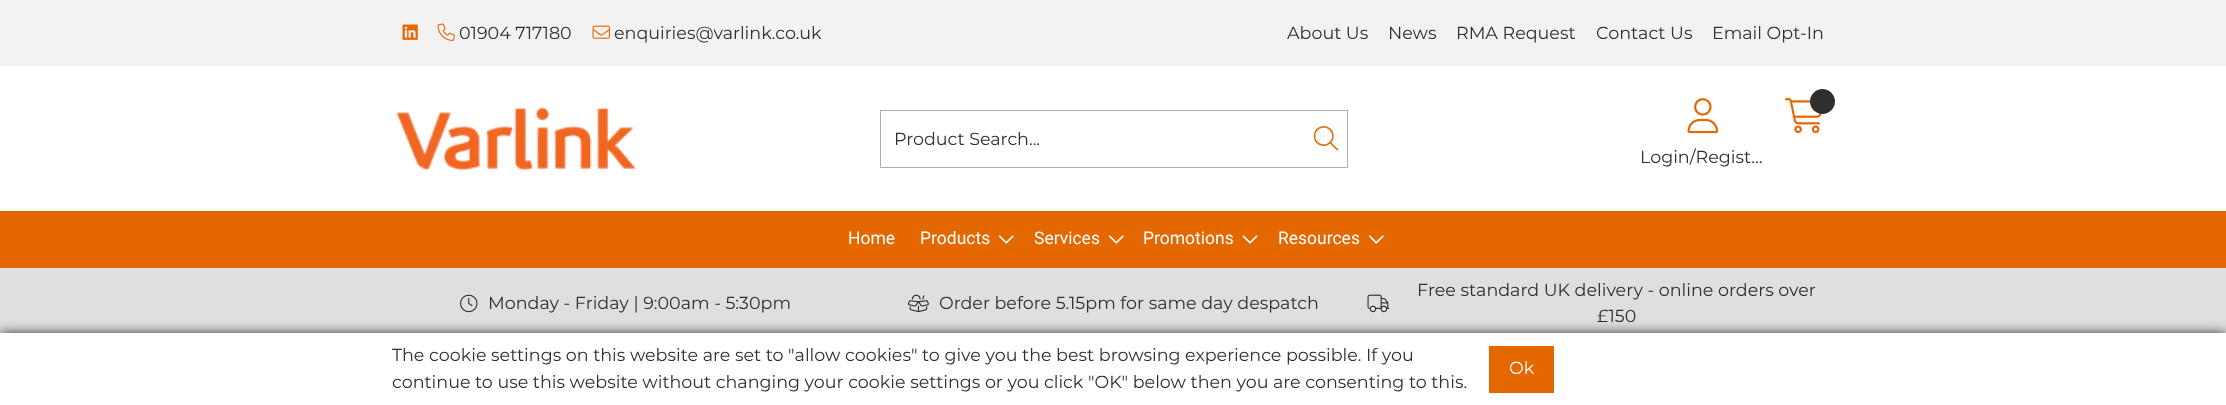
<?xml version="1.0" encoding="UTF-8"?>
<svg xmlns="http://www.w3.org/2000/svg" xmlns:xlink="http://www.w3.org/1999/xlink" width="2226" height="405">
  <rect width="100%" height="100%" fill="#ffffff" />
  <rect width="2226" height="66" fill="#f2f2f2" />
  <image x="402" y="24" width="16" height="16" xlink:href="image1.png" />
  <image x="437" y="23" width="18" height="18" xlink:href="image2.png" />
  <image x="592" y="25" width="18" height="14" xlink:href="image3.png" />
  <image x="396" y="107" width="241" height="64" xlink:href="image4.png" />
  <rect x="880.5" y="110.5" width="467" height="57" fill="none" stroke="#afafaf" />
  <image x="1313" y="126" width="26" height="25" xlink:href="image5.png" />
  <image x="1785" y="98" width="37" height="36" xlink:href="image6.png" />
  <circle cx="1822.5" cy="101.5" r="12.5" fill="#2f2f2f" />
  <image x="1687" y="98" width="32" height="36" xlink:href="image7.png" />
  <rect y="211" width="2226" height="57" fill="#e56700" />
  <image x="998" y="235" width="16" height="9" xlink:href="image8.png" />
  <image x="1108" y="235" width="16" height="9" xlink:href="image8.png" />
  <image x="1242" y="235" width="16" height="9" xlink:href="image9.png" />
  <image x="1368" y="235" width="16" height="9" xlink:href="image8.png" />
  <rect y="268" width="2226" height="65" fill="#dfdfdf" />
  <image x="460" y="294" width="18" height="19" xlink:href="image10.png" />
  <image x="907" y="294" width="22" height="19" xlink:href="image11.png" />
  <image x="1367" y="294" width="23" height="19" xlink:href="image12.png" />
  <rect y="333" width="2226" height="72" fill="#2f2f2f" filter="blur(6px)" />
  <rect y="333" width="2226" height="72" fill="#ffffff" />
  <rect x="1489" y="346" width="65" height="47" fill="#e56700" />
  <text x="459" y="39" style="font-family: Montserrat; font-size: 17.5px; font-weight: 100; fill: #2f2f2f">01904 717180</text>
  <text x="614" y="39" style="font-family: Montserrat; font-size: 17.5px; font-weight: 100; fill: #2f2f2f">enquiries@varlink.co.uk</text>
  <text x="1287" y="39" style="font-family: Montserrat; font-size: 17.5px; font-weight: 100; fill: #2f2f2f">About Us</text>
  <text x="1388" y="39" style="font-family: Montserrat; font-size: 17.5px; font-weight: 100; fill: #2f2f2f">News</text>
  <text x="1456" y="39" style="font-family: Montserrat; font-size: 17.5px; font-weight: 100; fill: #2f2f2f">RMA Request</text>
  <text x="1596" y="39" style="font-family: Montserrat; font-size: 17.5px; font-weight: 100; fill: #2f2f2f">Contact Us</text>
  <text x="1712" y="39" style="font-family: Montserrat; font-size: 17.5px; font-weight: 100; fill: #2f2f2f">Email Opt-In</text>
  <text x="894" y="145" style="font-family: Montserrat; font-size: 17.5px; font-weight: 100; fill: #2f2f2f">Product Search...</text>
  <text x="1640" y="163" style="font-family: Montserrat; font-size: 17.5px; font-weight: 100; fill: #2f2f2f">Login/Regist…</text>
  <text x="848" y="244" style="font-family: Roboto; font-size: 17.5px; fill: #ffffff">Home</text>
  <text x="920" y="244" style="font-family: Roboto; font-size: 17.5px; fill: #ffffff">Products</text>
  <text x="1034" y="244" style="font-family: Roboto; font-size: 17.5px; fill: #ffffff">Services</text>
  <text x="1143" y="244" style="font-family: Roboto; font-size: 17.5px; fill: #ffffff">Promotions</text>
  <text x="1278" y="244" style="font-family: Roboto; font-size: 17.5px; fill: #ffffff">Resources</text>
  <text x="488" y="309" style="font-family: Montserrat; font-size: 17.5px; font-weight: 100; fill: #2f2f2f">Monday - Friday | 9:00am - 5:30pm</text>
  <text x="939" y="309" style="font-family: Montserrat; font-size: 17.5px; font-weight: 100; fill: #2f2f2f">Order before 5.15pm for same day despatch</text>
  <text x="1417" y="296" style="font-family: Montserrat; font-size: 17.5px; font-weight: 100; fill: #2f2f2f">Free standard UK delivery - online orders over</text>
  <text x="1597" y="322" style="font-family: Montserrat; font-size: 17.5px; font-weight: 100; fill: #2f2f2f">£150</text>
  <text x="392" y="361" style="font-family: Montserrat; font-size: 17.5px; font-weight: 100; fill: #2f2f2f">The cookie settings on this website are set to "allow cookies" to give you the best browsing experience possible. If you</text>
  <text x="392" y="388" style="font-family: Montserrat; font-size: 17.5px; font-weight: 100; fill: #2f2f2f">continue to use this website without changing your cookie settings or you click "OK" below then you are consenting to this.</text>
  <text x="1509" y="374" style="font-family: Montserrat; font-size: 17.5px; font-weight: 100; fill: #ffffff">Ok</text>
</svg>
